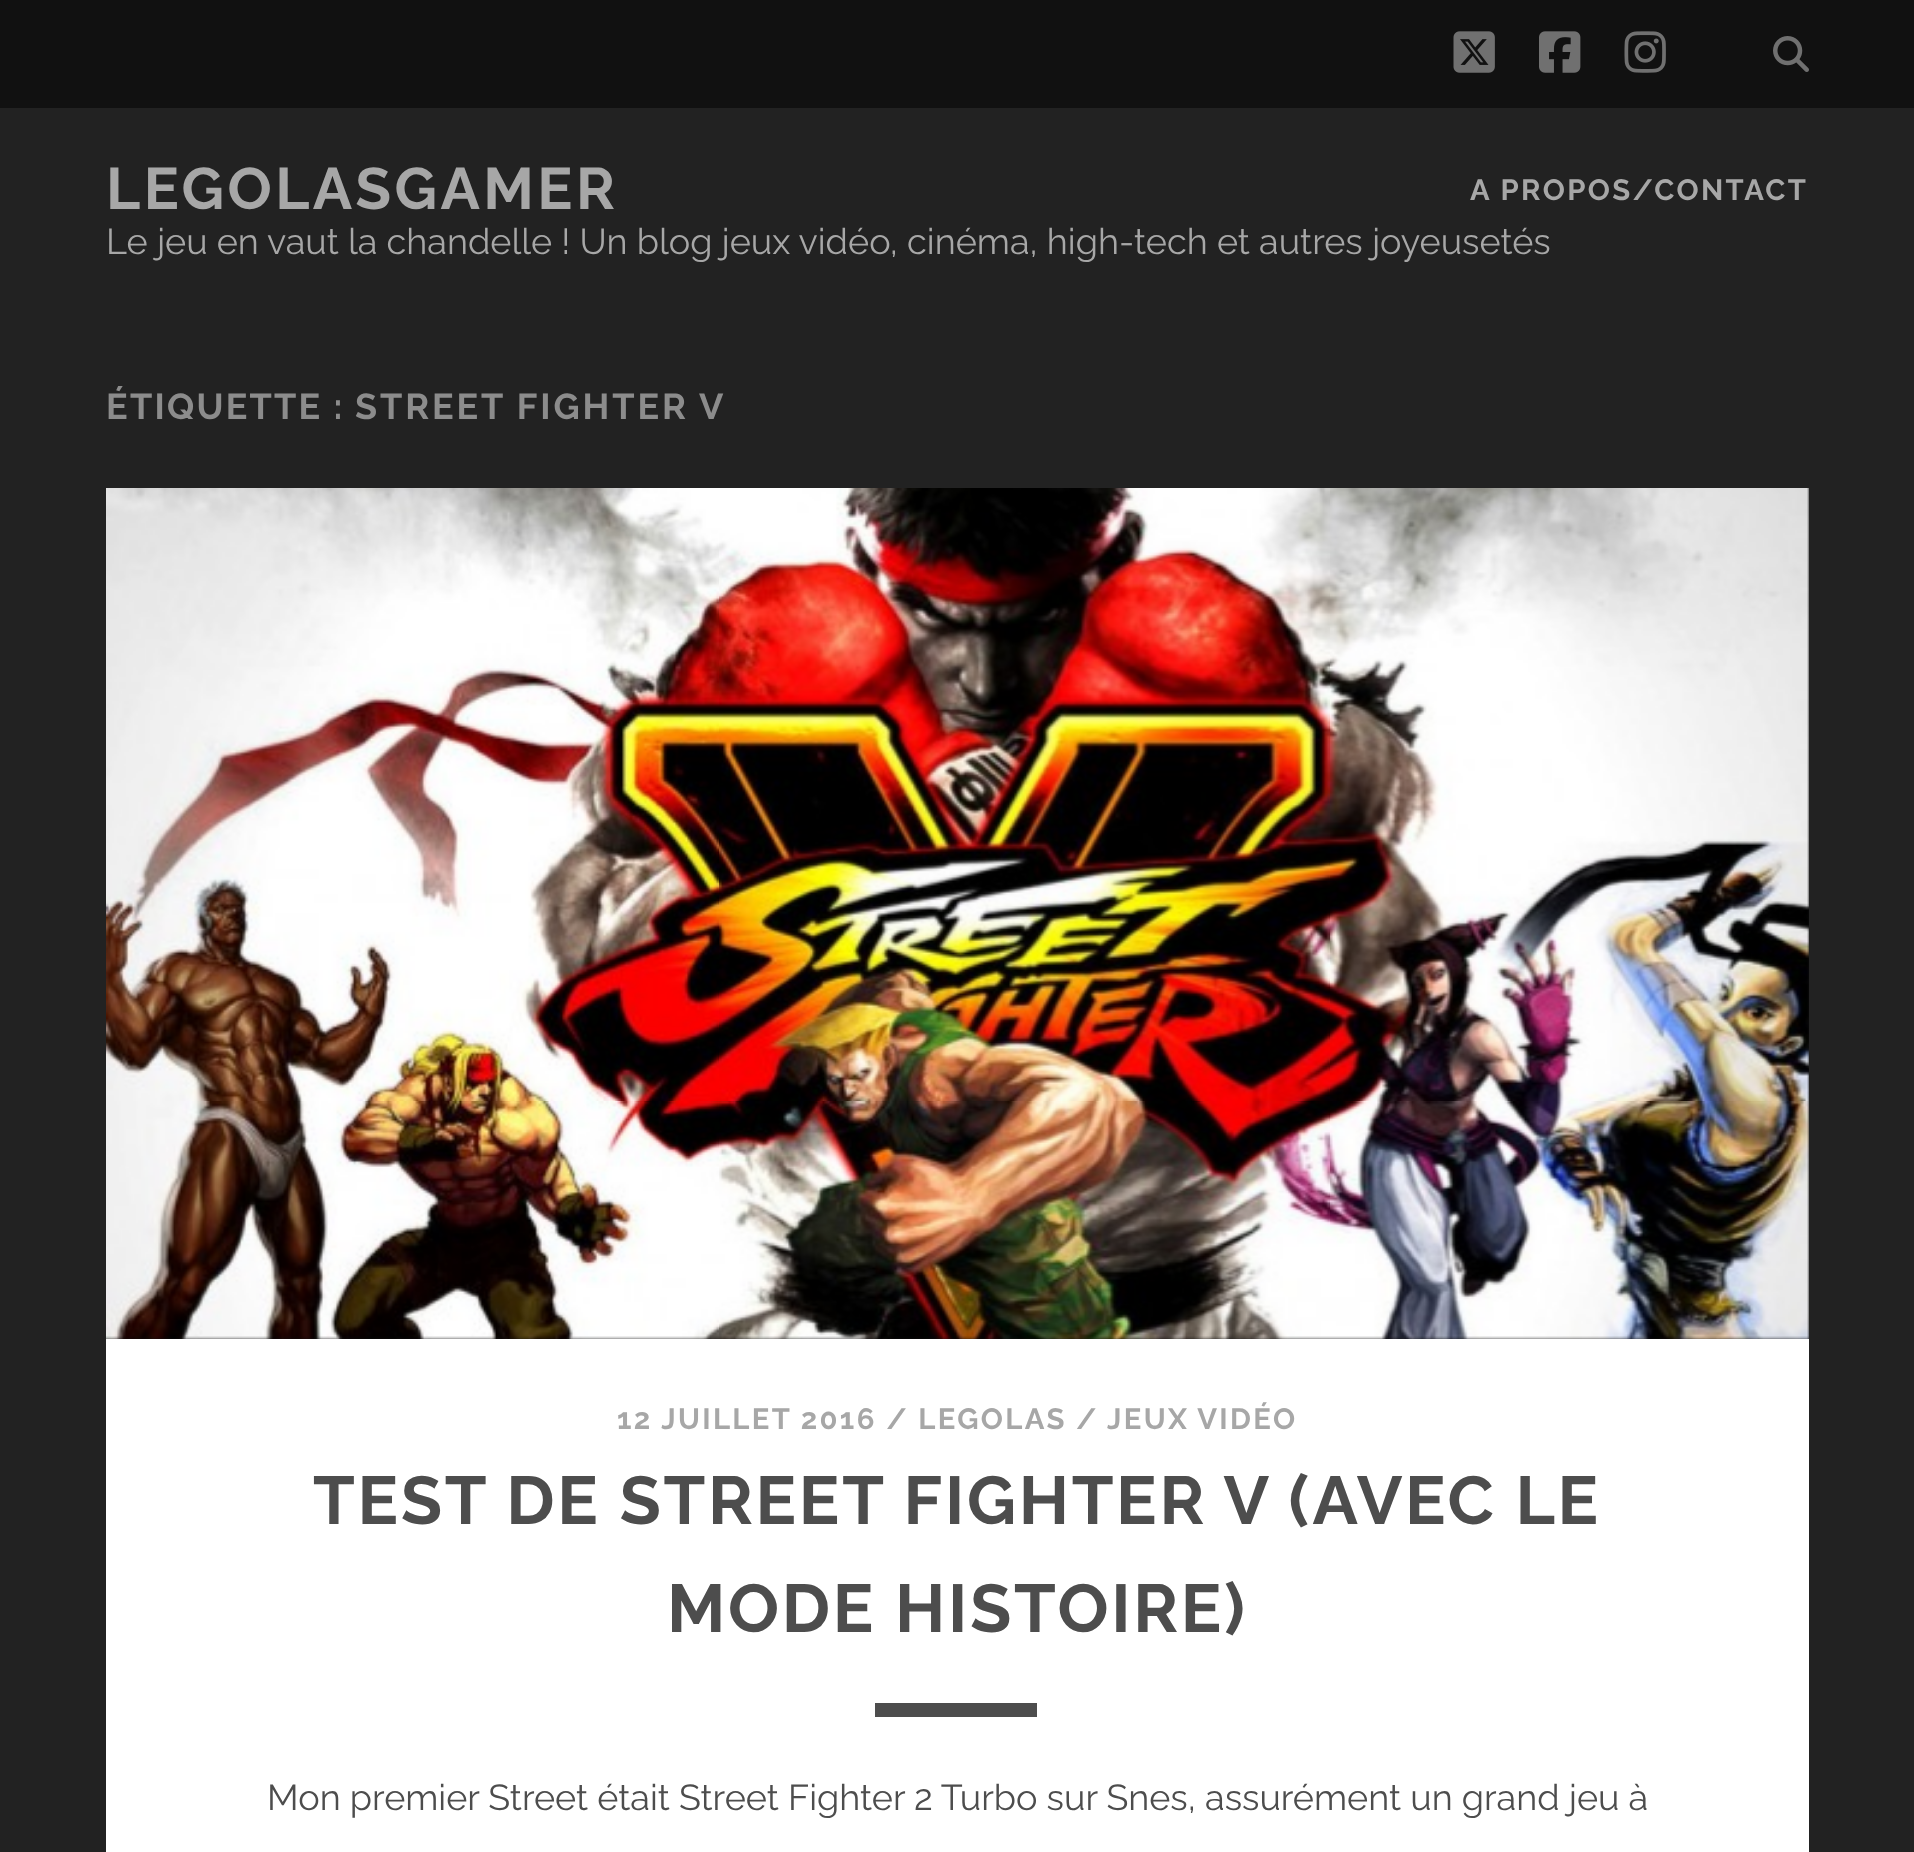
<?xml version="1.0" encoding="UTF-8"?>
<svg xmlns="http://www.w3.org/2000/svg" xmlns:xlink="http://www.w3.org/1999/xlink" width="1914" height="1852">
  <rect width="100%" height="100%" fill="#222222" />
  <rect width="1914" height="108" fill="#111111" />
  <image x="1453" y="31" width="42" height="42" xlink:href="image1.png" />
  <image x="1539" y="31" width="42" height="42" xlink:href="image2.png" />
  <image x="1624" y="31" width="42" height="42" xlink:href="image3.png" />
  <image x="1773" y="36" width="36" height="36" xlink:href="image4.png" />
  <rect x="106" y="488" width="1703" height="851" fill="#111111" />
  <image x="106" y="488" width="1703" height="851" xlink:href="image5.png" />
  <rect x="106" y="1339" width="1703" height="513" fill="#ffffff" />
  <rect x="875" y="1703" width="162" height="14" fill="#4d4d4d" />
  <text x="106" y="209" style="font-family: Raleway; font-size: 58.5px; font-weight: bold; letter-spacing: 3.5px; fill: #a7a7a7">LEGOLASGAMER</text>
  <text x="1470" y="200" style="font-family: Raleway; font-size: 29.25px; font-weight: bold; letter-spacing: 2.35px; fill: #a7a7a7">A PROPOS/CONTACT</text>
  <text x="106" y="254" style="font-family: Raleway; font-size: 36px; fill: #a7a7a7">Le jeu en vaut la chandelle ! Un blog jeux vidéo, cinéma, high-tech et autres joyeusetés</text>
  <text x="106" y="419" style="font-family: Raleway; font-size: 36px; font-weight: bold; letter-spacing: 2.25px; fill: #8c8c8c">ÉTIQUETTE :</text>
  <text x="355" y="419" style="font-family: Raleway; font-size: 36px; font-weight: bold; letter-spacing: 2.9px; fill: #8c8c8c">STREET FIGHTER V</text>
  <text x="617" y="1429" style="font-family: Raleway; font-size: 29.25px; font-weight: bold; letter-spacing: 2.35px; fill: #a7a7a7">12 JUILLET 2016 / LEGOLAS /</text>
  <text x="1107" y="1429" style="font-family: Raleway; font-size: 29.25px; font-weight: bold; letter-spacing: 2.35px; fill: #a7a7a7">JEUX VIDÉO</text>
  <text x="313" y="1524" style="font-family: Raleway; font-size: 67.5px; font-weight: bold; letter-spacing: 2.7px; fill: #4d4d4d">TEST DE STREET FIGHTER V (AVEC LE</text>
  <text x="667" y="1632" style="font-family: Raleway; font-size: 67.5px; font-weight: bold; letter-spacing: 2.7px; fill: #4d4d4d">MODE HISTOIRE)</text>
  <text x="267" y="1810" style="font-family: Raleway; font-size: 36px; fill: #4d4d4d">Mon premier Street était Street Fighter 2 Turbo sur Snes, assurément un grand jeu à</text>
</svg>
